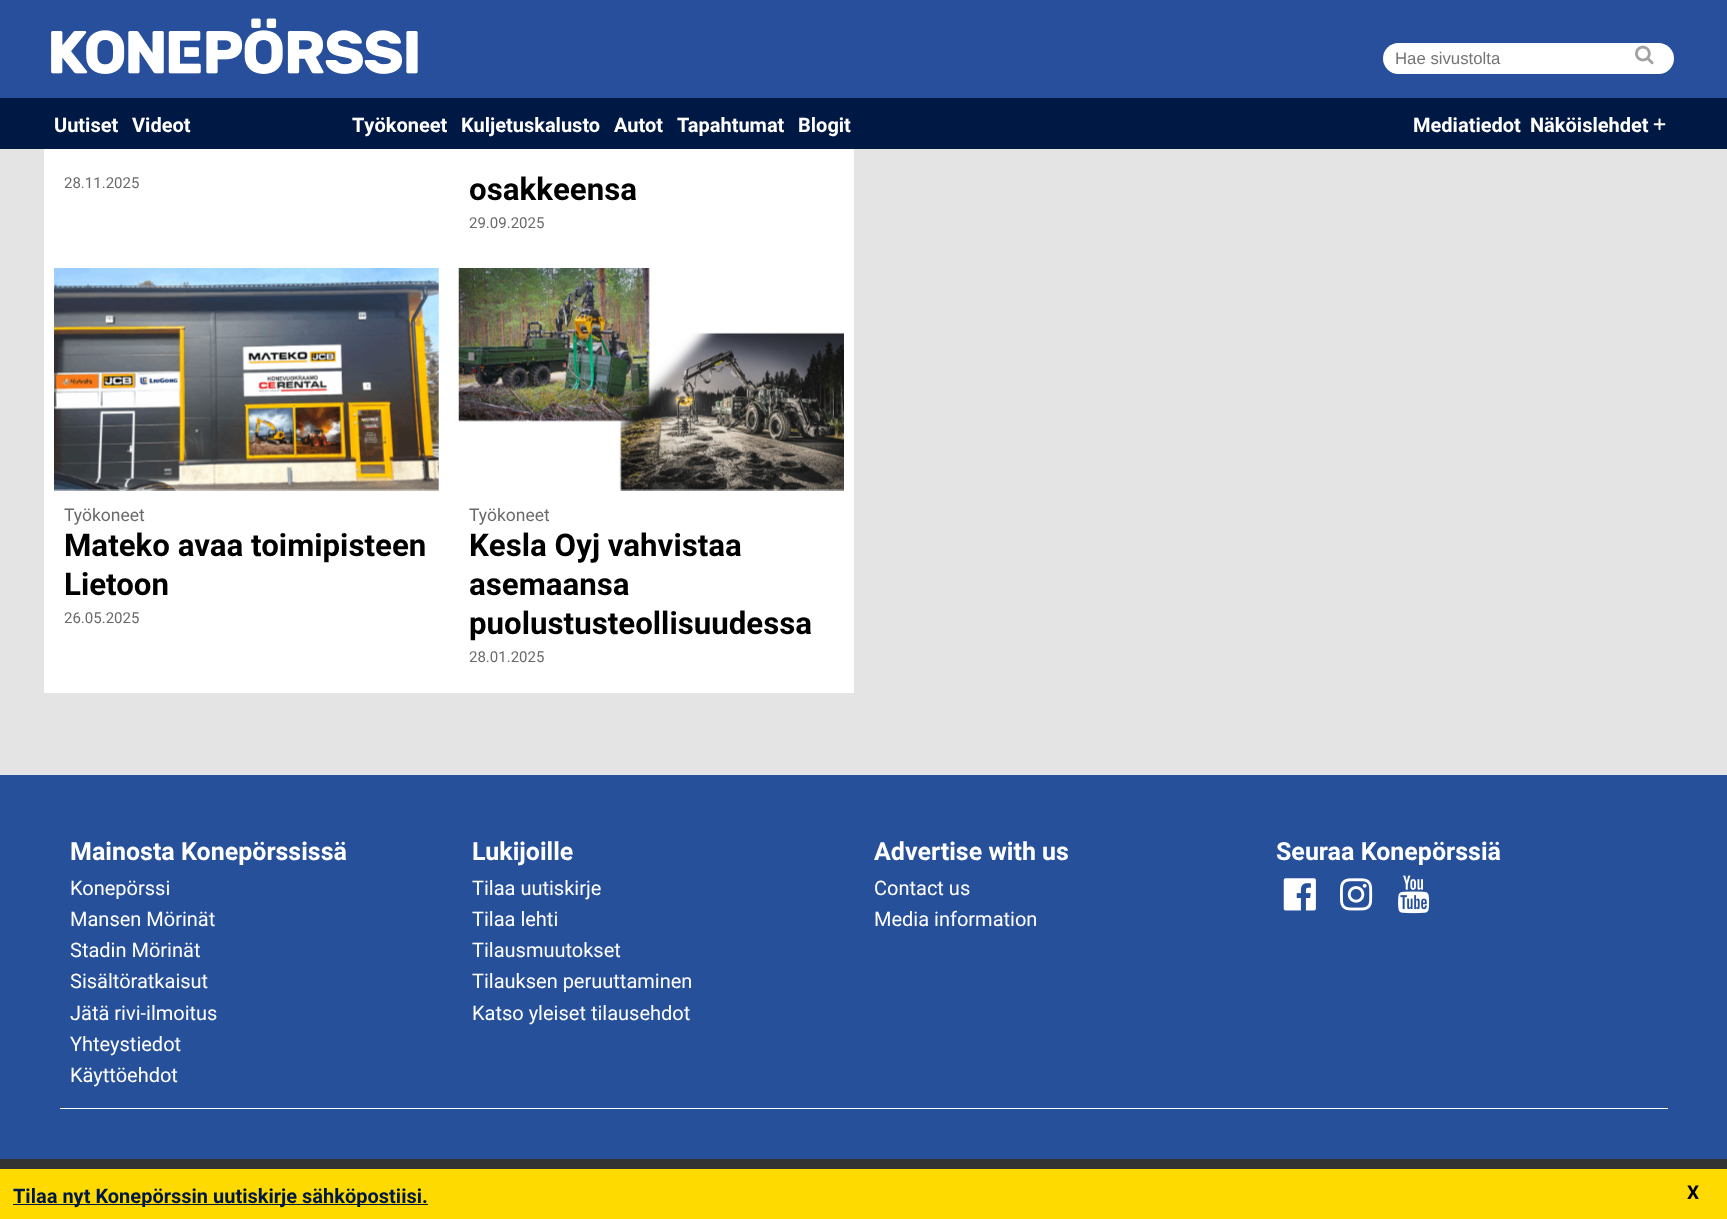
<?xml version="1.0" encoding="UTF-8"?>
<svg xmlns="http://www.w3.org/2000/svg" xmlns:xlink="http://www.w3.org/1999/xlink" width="1727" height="1219">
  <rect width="100%" height="100%" fill="#e4e4e4" />
  <rect width="1727" height="98" fill="#274f9b" />
  <image x="51" y="18" width="367" height="56" xlink:href="image1.png" />
  <rect x="1383" y="43" width="291" height="31" rx="15.5" fill="#ffffff" />
  <image x="1635" y="45" width="19" height="20" xlink:href="image2.png" />
  <rect y="98" width="1727" height="51" fill="#001844" />
  <image x="1653" y="118" width="13" height="12" xlink:href="image3.png" />
  <rect x="44" y="149" width="810" height="544" fill="#ffffff" />
  <image x="54" y="268" width="385" height="223" xlink:href="image4.png" />
  <image x="458" y="268" width="386" height="223" xlink:href="image5.png" />
  <rect y="775" width="1727" height="384" fill="#27509b" />
  <rect x="60" y="1108" width="1608" height="1" fill="#ffffff" />
  <image x="1283" y="878" width="33" height="33" xlink:href="image6.png" />
  <image x="1340" y="878" width="33" height="33" xlink:href="image7.png" />
  <image x="1398" y="875" width="32" height="39" xlink:href="image8.png" />
  <rect y="1159" width="1727" height="10" fill="#333333" />
  <rect y="1169" width="1727" height="50" fill="#ffda00" />
  <rect x="13" y="1204" width="415" height="1" fill="#001844" />
  <text x="1395" y="64" style="font-family: Liberation Sans; font-size: 16.75px; fill: #757575">Hae sivustolta</text>
  <text x="54" y="132" style="font-family: Roboto; font-size: 20px; font-weight: bold; fill: #ffffff">Uutiset</text>
  <text x="132" y="132" style="font-family: Roboto; font-size: 20px; font-weight: bold; fill: #ffffff">Videot</text>
  <text x="352" y="132" style="font-family: Roboto; font-size: 20px; font-weight: bold; fill: #ffffff">Työkoneet</text>
  <text x="461" y="132" style="font-family: Roboto; font-size: 20px; font-weight: bold; fill: #ffffff">Kuljetuskalusto</text>
  <text x="614" y="132" style="font-family: Roboto; font-size: 20px; font-weight: bold; fill: #ffffff">Autot</text>
  <text x="677" y="132" style="font-family: Roboto; font-size: 20px; font-weight: bold; fill: #ffffff">Tapahtumat</text>
  <text x="798" y="132" style="font-family: Roboto; font-size: 20px; font-weight: bold; fill: #ffffff">Blogit</text>
  <text x="1413" y="132" style="font-family: Roboto; font-size: 20px; font-weight: bold; fill: #ffffff">Mediatiedot</text>
  <text x="1530" y="132" style="font-family: Roboto; font-size: 20px; font-weight: bold; fill: #ffffff">Näköislehdet</text>
  <text x="64" y="188" style="font-family: Roboto; font-size: 15px; fill: #6a6a6a">28.11.2025</text>
  <text x="469" y="200" style="font-family: Roboto; font-size: 31.25px; font-weight: bold; fill: #000000">osakkeensa</text>
  <text x="469" y="228" style="font-family: Roboto; font-size: 15px; fill: #6a6a6a">29.09.2025</text>
  <text x="64" y="521" style="font-family: Roboto; font-size: 17.5px; fill: #6a6a6a">Työkoneet</text>
  <text x="64" y="556" style="font-family: Roboto; font-size: 31.25px; font-weight: bold; fill: #000000">Mateko avaa toimipisteen</text>
  <text x="64" y="595" style="font-family: Roboto; font-size: 31.25px; font-weight: bold; fill: #000000">Lietoon</text>
  <text x="64" y="623" style="font-family: Roboto; font-size: 15px; fill: #6a6a6a">26.05.2025</text>
  <text x="469" y="521" style="font-family: Roboto; font-size: 17.5px; fill: #6a6a6a">Työkoneet</text>
  <text x="469" y="556" style="font-family: Roboto; font-size: 31.25px; font-weight: bold; fill: #000000">Kesla Oyj vahvistaa</text>
  <text x="469" y="595" style="font-family: Roboto; font-size: 31.25px; font-weight: bold; fill: #000000">asemaansa</text>
  <text x="469" y="634" style="font-family: Roboto; font-size: 31.25px; font-weight: bold; fill: #000000">puolustusteollisuudessa</text>
  <text x="469" y="662" style="font-family: Roboto; font-size: 15px; fill: #6a6a6a">28.01.2025</text>
  <text x="70" y="860" style="font-family: Roboto; font-size: 25px; font-weight: bold; fill: #ffffff">Mainosta Konepörssissä</text>
  <text x="70" y="895" style="font-family: Roboto; font-size: 20px; fill: #ffffff">Konepörssi</text>
  <text x="70" y="926" style="font-family: Roboto; font-size: 20px; fill: #ffffff">Mansen Mörinät</text>
  <text x="70" y="957" style="font-family: Roboto; font-size: 20px; fill: #ffffff">Stadin Mörinät</text>
  <text x="70" y="988" style="font-family: Roboto; font-size: 20px; fill: #ffffff">Sisältöratkaisut</text>
  <text x="70" y="1020" style="font-family: Roboto; font-size: 20px; fill: #ffffff">Jätä rivi-ilmoitus</text>
  <text x="70" y="1051" style="font-family: Roboto; font-size: 20px; fill: #ffffff">Yhteystiedot</text>
  <text x="70" y="1082" style="font-family: Roboto; font-size: 20px; fill: #ffffff">Käyttöehdot</text>
  <text x="472" y="860" style="font-family: Roboto; font-size: 25px; font-weight: bold; fill: #ffffff">Lukijoille</text>
  <text x="472" y="895" style="font-family: Roboto; font-size: 20px; fill: #ffffff">Tilaa uutiskirje</text>
  <text x="472" y="926" style="font-family: Roboto; font-size: 20px; fill: #ffffff">Tilaa lehti</text>
  <text x="472" y="957" style="font-family: Roboto; font-size: 20px; fill: #ffffff">Tilausmuutokset</text>
  <text x="472" y="988" style="font-family: Roboto; font-size: 20px; fill: #ffffff">Tilauksen peruuttaminen</text>
  <text x="472" y="1020" style="font-family: Roboto; font-size: 20px; fill: #ffffff">Katso yleiset tilausehdot</text>
  <text x="874" y="860" style="font-family: Roboto; font-size: 25px; font-weight: bold; fill: #ffffff">Advertise with us</text>
  <text x="874" y="895" style="font-family: Roboto; font-size: 20px; fill: #ffffff">Contact us</text>
  <text x="874" y="926" style="font-family: Roboto; font-size: 20px; fill: #ffffff">Media information</text>
  <text x="1276" y="860" style="font-family: Roboto; font-size: 25px; font-weight: bold; fill: #ffffff">Seuraa Konepörssiä</text>
  <text x="13" y="1203" style="font-family: Roboto; font-size: 20px; font-weight: bold; fill: #001844">Tilaa nyt Konepörssin uutiskirje sähköpostiisi.</text>
  <text x="1687" y="1199" style="font-family: Roboto; font-size: 19px; font-weight: bold; fill: #000000">X</text>
</svg>
